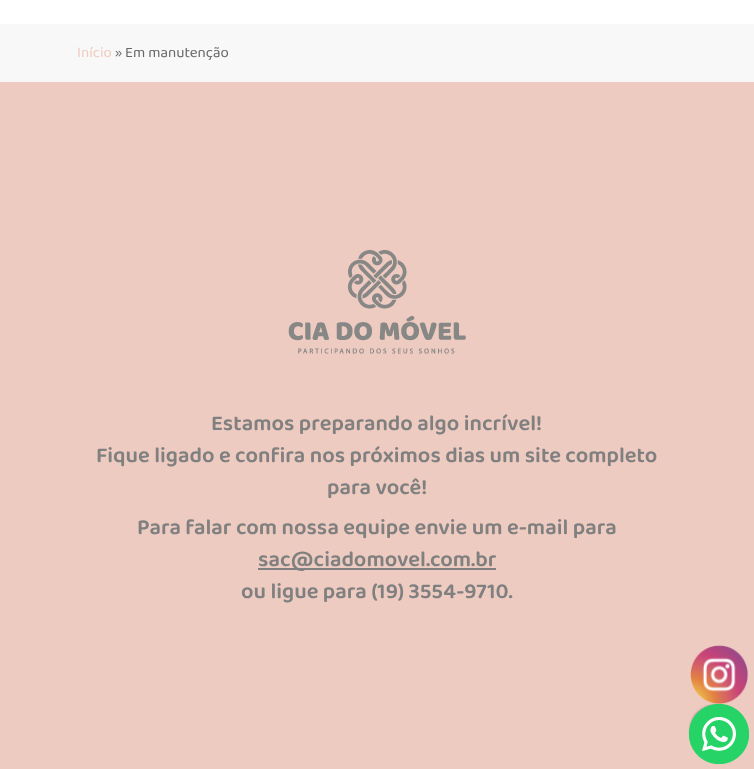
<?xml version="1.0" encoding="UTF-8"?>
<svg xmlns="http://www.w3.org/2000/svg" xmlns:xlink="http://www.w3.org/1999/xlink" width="754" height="769">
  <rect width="100%" height="100%" fill="#ffffff" />
  <rect y="24" width="754" height="58" fill="#f8f8f8" />
  <rect y="82" width="754" height="687" fill="#eecbc0" />
  <image x="288" y="250" width="178" height="104" xlink:href="image1.png" />
  <rect x="258" y="568" width="238" height="2" fill="#808080" />
  <rect x="690" y="705" width="50" height="50" rx="25" fill="#888888" filter="blur(1px)" />
  <image x="690" y="645" width="59" height="59" xlink:href="image2.png" />
  <image x="689" y="704" width="60" height="60" xlink:href="image3.png" />
  <text x="77" y="57" style="font-family: 'Baloo Bhai 2'; font-size: 15px; fill: #eecbc0">Início</text>
  <text x="115" y="57" style="font-family: 'Baloo Bhai 2'; font-size: 15px; fill: #676767">» Em manutenção</text>
  <text x="211" y="430" style="font-family: 'Baloo Bhai 2'; font-size: 22px; font-weight: 600; fill: #808080">Estamos preparando algo incrível!</text>
  <text x="96" y="462" style="font-family: 'Baloo Bhai 2'; font-size: 22px; font-weight: 600; fill: #808080">Fique ligado e confira nos próximos dias um site completo</text>
  <text x="327" y="494" style="font-family: 'Baloo Bhai 2'; font-size: 22px; font-weight: 600; fill: #808080">para você!</text>
  <text x="137" y="534" style="font-family: 'Baloo Bhai 2'; font-size: 22px; font-weight: 600; fill: #808080">Para falar com nossa equipe envie um e-mail para</text>
  <text x="258" y="566" style="font-family: 'Baloo Bhai 2'; font-size: 22px; font-weight: 600; fill: #808080">sac@ciadomovel.com.br</text>
  <text x="241" y="598" style="font-family: 'Baloo Bhai 2'; font-size: 22px; font-weight: 600; fill: #808080">ou ligue para (19) 3554-9710.</text>
</svg>
